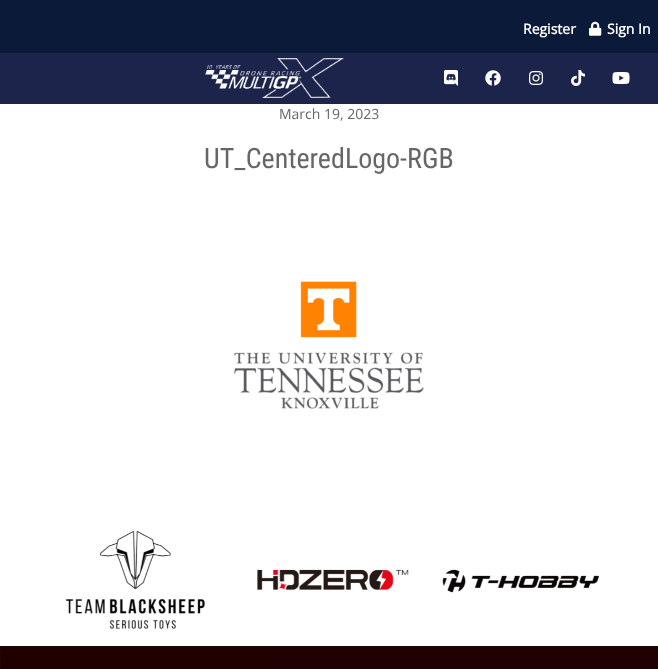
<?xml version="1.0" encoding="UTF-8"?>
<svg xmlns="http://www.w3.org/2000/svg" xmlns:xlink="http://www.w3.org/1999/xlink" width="658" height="669">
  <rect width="100%" height="100%" fill="#ffffff" />
  <rect width="658" height="53" fill="#0c1a3a" />
  <image x="589" y="21" width="13" height="15" xlink:href="image1.png" />
  <rect y="53" width="658" height="51" fill="#1c244b" />
  <image x="205" y="58" width="139" height="40" xlink:href="image2.png" />
  <image x="444" y="70" width="14" height="16" xlink:href="image3.png" />
  <image x="485" y="70" width="16" height="16" xlink:href="image4.png" />
  <image x="529" y="71" width="14" height="14" xlink:href="image5.png" />
  <image x="571" y="70" width="14" height="16" xlink:href="image6.png" />
  <image x="612" y="72" width="18" height="12" xlink:href="image7.png" />
  <image x="234" y="281" width="190" height="128" xlink:href="image8.png" />
  <image x="65" y="530" width="140" height="99" xlink:href="image9.png" />
  <image x="257" y="569" width="152" height="21" xlink:href="image10.png" />
  <image x="442" y="569" width="157" height="24" xlink:href="image11.png" />
  <image x="0" y="646" width="658" height="23" xlink:href="image12.png" />
  <text x="523" y="34" style="font-family: Open Sans; font-size: 14px; font-weight: bold; fill: #ffffff">Register</text>
  <text x="607" y="34" style="font-family: Open Sans; font-size: 14px; font-weight: bold; fill: #ffffff">Sign In</text>
  <text x="279" y="119" style="font-family: Open Sans; font-size: 14px; fill: #666666">March 19, 2023</text>
  <text x="204" y="168" style="font-family: Roboto Condensed; font-size: 28px; fill: #666666">UT_CenteredLogo-RGB</text>
</svg>
